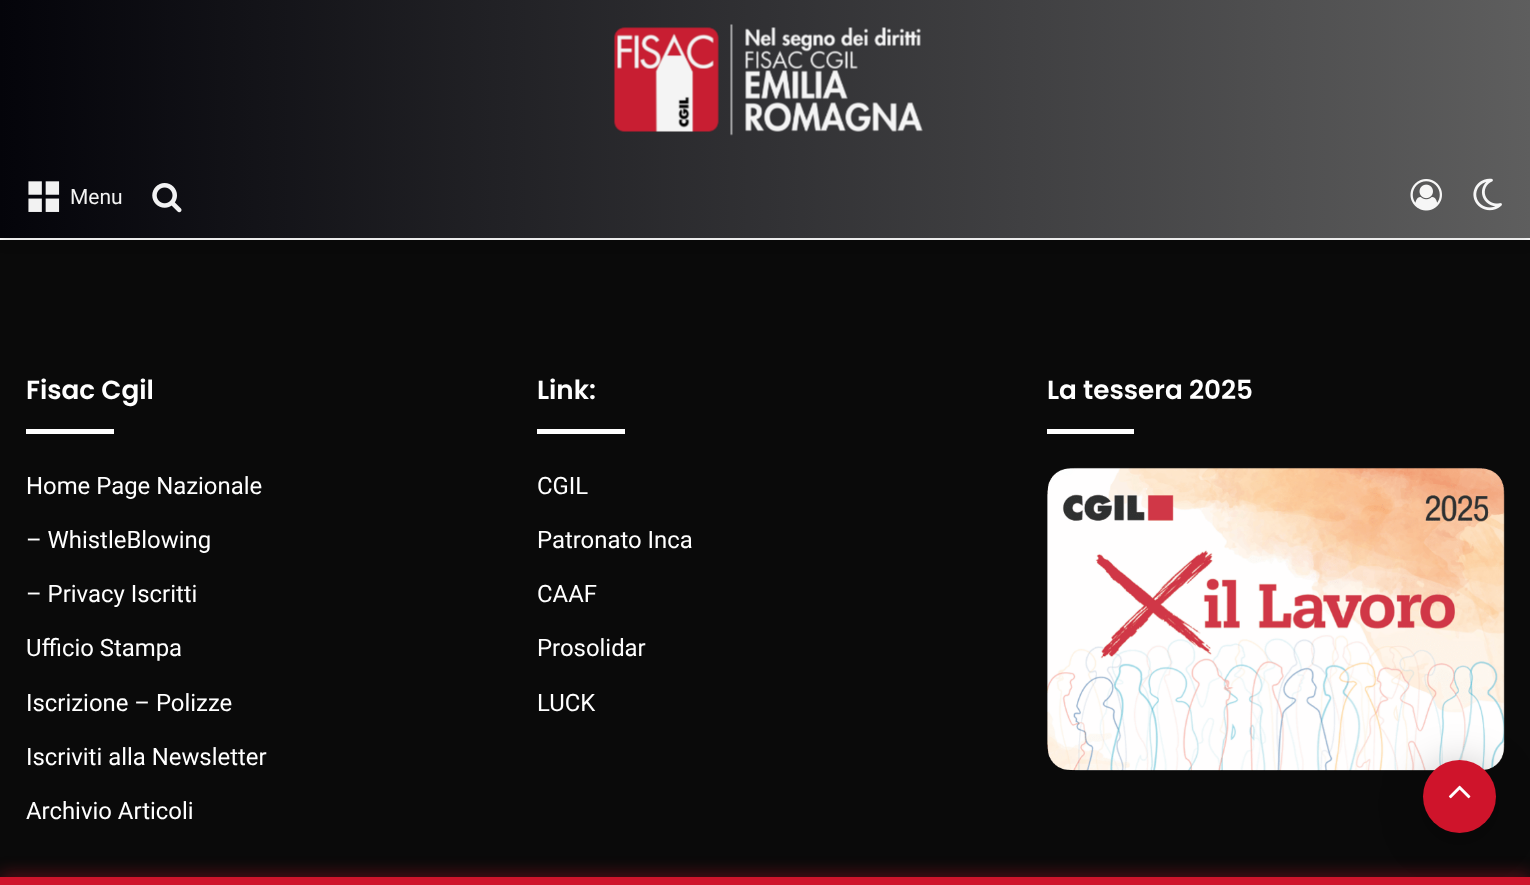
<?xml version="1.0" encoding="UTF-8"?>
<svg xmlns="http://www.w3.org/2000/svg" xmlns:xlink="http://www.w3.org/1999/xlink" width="1530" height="885">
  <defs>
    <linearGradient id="g1" gradientUnits="userSpaceOnUse" x1="0" y1="119" x2="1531" y2="119"><stop offset="0" stop-color="#04040a" /><stop offset="1" stop-color="#5e5e5e" /></linearGradient>
  </defs>
  <rect width="100%" height="100%" fill="#ffffff" />
  <rect y="240" width="1530" height="637" fill="#0a0a0a" />
  <rect y="5" width="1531" height="238" fill="#000000" fill-opacity="0.1" filter="blur(6px)" />
  <rect width="1530" height="238" fill="url(#g1)" />
  <image x="613" y="24" width="310" height="112" xlink:href="image1.png" />
  <image x="28" y="181" width="32" height="31" xlink:href="image2.png" />
  <image x="152" y="183" width="30" height="30" xlink:href="image3.png" />
  <image x="1410" y="179" width="32" height="32" xlink:href="image4.png" />
  <image x="1473" y="178" width="29" height="33" xlink:href="image5.png" />
  <rect x="26" y="429" width="88" height="5" fill="#ffffff" />
  <rect x="537" y="429" width="88" height="5" fill="#ffffff" />
  <rect x="1047" y="429" width="87" height="5" fill="#ffffff" />
  <image x="1047" y="467" width="458" height="304" xlink:href="image6.png" />
  <rect x="1423" y="768" width="73" height="74" rx="36.5" fill="#000000" fill-opacity="0.3" filter="blur(22px)" />
  <circle cx="1459.5" cy="796.5" r="36.5" fill="#cf142b" />
  <image x="1448" y="785" width="23" height="14" xlink:href="image7.png" />
  <rect y="877" width="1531" height="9" fill="#cf142b" fill-opacity="0.7" filter="blur(9px)" />
  <rect y="877" width="1530" height="8" fill="#cf142b" />
  <text x="70" y="204" style="font-family: Roboto; font-size: 21px; fill: #f3f3f3">Menu</text>
  <text x="26" y="399" style="font-family: Poppins; font-size: 26.25px; font-weight: 600; fill: #ffffff">Fisac Cgil</text>
  <text x="26" y="494" style="font-family: Roboto; font-size: 23.9px; fill: #ffffff">Home Page Nazionale</text>
  <text x="26" y="548" style="font-family: Roboto; font-size: 23.9px; fill: #ffffff">– WhistleBlowing</text>
  <text x="26" y="602" style="font-family: Roboto; font-size: 23.9px; fill: #ffffff">– Privacy Iscritti</text>
  <text x="26" y="656" style="font-family: Roboto; font-size: 23.9px; fill: #ffffff">Ufficio Stampa</text>
  <text x="26" y="711" style="font-family: Roboto; font-size: 23.9px; fill: #ffffff">Iscrizione – Polizze</text>
  <text x="26" y="765" style="font-family: Roboto; font-size: 23.9px; fill: #ffffff">Iscriviti alla Newsletter</text>
  <text x="26" y="819" style="font-family: Roboto; font-size: 23.9px; fill: #ffffff">Archivio Articoli</text>
  <text x="537" y="399" style="font-family: Poppins; font-size: 26.25px; font-weight: 600; fill: #ffffff">Link:</text>
  <text x="537" y="494" style="font-family: Roboto; font-size: 23.9px; fill: #ffffff">CGIL</text>
  <text x="537" y="548" style="font-family: Roboto; font-size: 23.9px; fill: #ffffff">Patronato Inca</text>
  <text x="537" y="602" style="font-family: Roboto; font-size: 23.9px; fill: #ffffff">CAAF</text>
  <text x="537" y="656" style="font-family: Roboto; font-size: 23.9px; fill: #ffffff">Prosolidar</text>
  <text x="537" y="711" style="font-family: Roboto; font-size: 23.9px; fill: #ffffff">LUCK</text>
  <text x="1047" y="399" style="font-family: Poppins; font-size: 26.25px; font-weight: 600; fill: #ffffff">La tessera 2025</text>
</svg>
